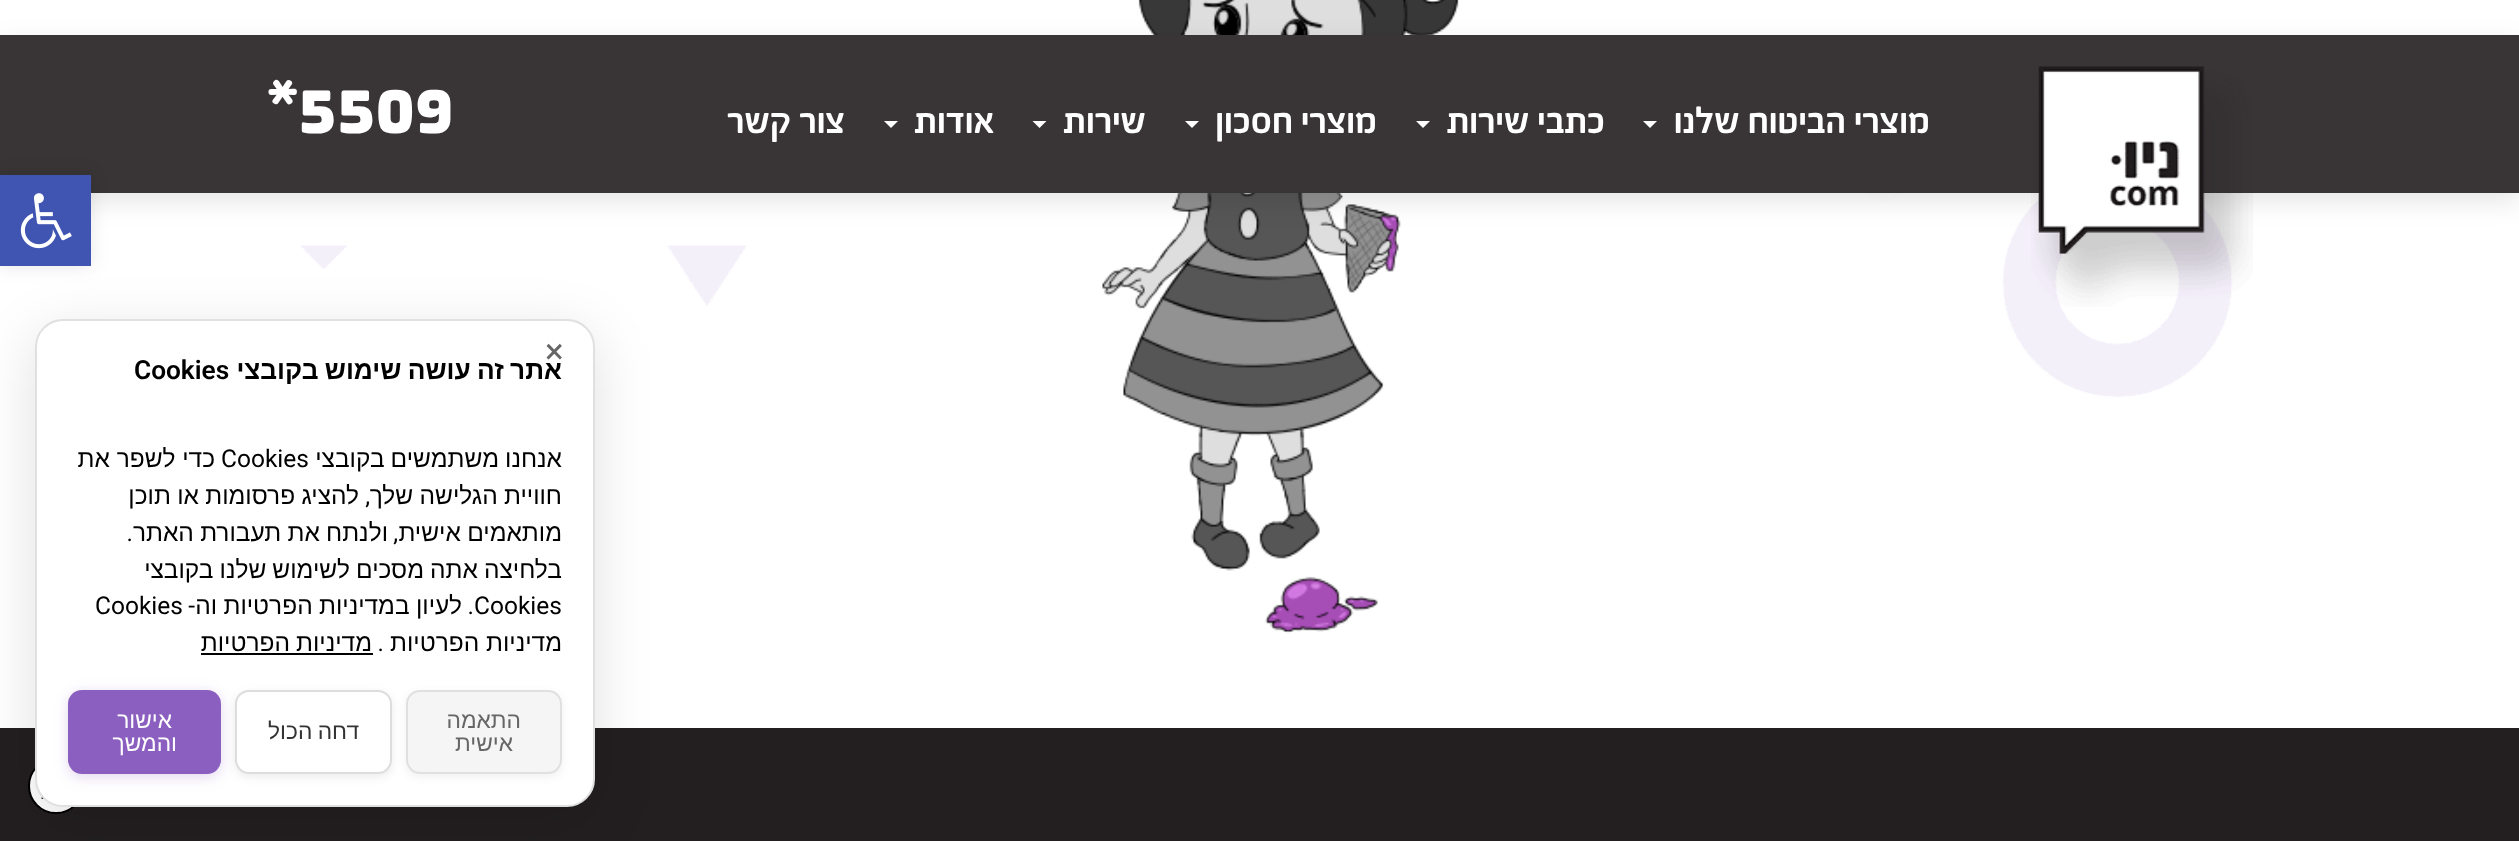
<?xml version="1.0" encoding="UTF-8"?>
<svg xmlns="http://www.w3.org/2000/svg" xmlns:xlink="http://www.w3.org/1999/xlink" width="2519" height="841">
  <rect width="100%" height="100%" fill="#ffffff" />
  <image x="1102" y="0" width="357" height="634" xlink:href="image1.png" />
  <image x="300" y="193" width="1933" height="205" xlink:href="image2.png" />
  <rect y="44" width="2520" height="157" fill="#000000" fill-opacity="0.1" filter="blur(13px)" />
  <rect y="35" width="2519" height="158" fill="#393536" />
  <image x="2031" y="66" width="222" height="241" xlink:href="image3.png" />
  <path d="M 1643 121 h 14 l -7 7 z" fill="#ffffff" />
  <path d="M 1416 121 h 14 l -7 7 z" fill="#ffffff" />
  <path d="M 1185 121 h 14 l -7 7 z" fill="#ffffff" />
  <path d="M 1032.5 121 h 14 l -7 7 z" fill="#ffffff" />
  <path d="M 884 121 h 14 l -7 7 z" fill="#ffffff" />
  <rect y="175" width="91" height="91" fill="#000000" fill-opacity="0.1" filter="blur(9px)" />
  <rect y="175" width="91" height="91" fill="#4054b2" />
  <image x="20" y="193" width="52" height="56" xlink:href="image4.png" />
  <rect y="728" width="2519" height="113" fill="#231f20" />
  <circle cx="56" cy="786" r="27" fill="#ffffff" stroke="#000000" stroke-width="2" />
  <image x="41" y="797" width="3" height="2" xlink:href="image5.png" />
  <rect x="35" y="333" width="560" height="488" rx="28" fill="#000000" fill-opacity="0.12" filter="blur(28px)" />
  <rect x="36" y="320" width="558" height="486" rx="27" fill="#ffffff" stroke="#e0e0e0" stroke-width="2" />
  <rect x="201" y="653" width="172" height="2" fill="#000000" />
  <rect x="406" y="693" width="156" height="84" rx="14" fill="#000000" fill-opacity="0.06" filter="blur(5px)" />
  <rect x="407" y="691" width="154" height="82" rx="13" fill="#f5f5f5" stroke="#e0e0e0" stroke-width="2" />
  <rect x="235" y="693" width="157" height="84" rx="14" fill="#000000" fill-opacity="0.08" filter="blur(5px)" />
  <rect x="236" y="691" width="155" height="82" rx="13" fill="#ffffff" stroke="#dddddd" stroke-width="2" />
  <rect x="68" y="693" width="153" height="84" rx="14" fill="#8b5fbf" fill-opacity="0.25" filter="blur(7px)" />
  <rect x="68" y="690" width="153" height="84" rx="14" fill="#8b5fbf" />
  <text x="1930" y="133" style="font-family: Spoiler; font-size: 42px; font-weight: bold; direction: rtl; fill: #ffffff">מוצרי הביטוח שלנו</text>
  <text x="1605" y="133" style="font-family: Spoiler; font-size: 42px; font-weight: bold; direction: rtl; fill: #ffffff">כתבי שירות</text>
  <text x="1377" y="133" style="font-family: Spoiler; font-size: 42px; font-weight: bold; direction: rtl; fill: #ffffff">מוצרי חסכון</text>
  <text x="1146" y="133" style="font-family: Spoiler; font-size: 42px; font-weight: bold; direction: rtl; fill: #ffffff">שירות</text>
  <text x="994" y="133" style="font-family: Spoiler; font-size: 42px; font-weight: bold; direction: rtl; fill: #ffffff">אודות</text>
  <text x="845" y="133" style="font-family: Spoiler; font-size: 42px; font-weight: bold; direction: rtl; fill: #ffffff">צור קשר</text>
  <text x="266" y="133" style="font-family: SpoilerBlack; font-size: 84px; font-weight: 900; letter-spacing: -1.75px; fill: #ffffff">*5509</text>
  <text x="545" y="363" style="font-family: Roboto; font-size: 35px; fill: #666666">×</text>
  <text x="562" y="379" word-spacing="-1" style="font-family: Liberation Sans; font-size: 26.25px; font-weight: bold; direction: rtl; fill: #000000">אתר זה עושה שימוש בקובצי</text>
  <text x="134" y="379" style="font-family: Roboto; font-size: 26.25px; font-weight: 600; fill: #000000">Cookies</text>
  <text x="562" y="467" word-spacing="-0.75" style="font-family: Liberation Sans; font-size: 24.5px; direction: rtl; fill: #000000">אנחנו משתמשים בקובצי</text>
  <text x="221" y="467" style="font-family: Roboto; font-size: 24.5px; fill: #000000">Cookies</text>
  <text x="215" y="467" style="font-family: Liberation Sans; font-size: 24.5px; direction: rtl; fill: #000000">כדי לשפר את</text>
  <text x="562" y="504" word-spacing="-0.5" style="font-family: Liberation Sans; font-size: 24.5px; direction: rtl; fill: #000000">חוויית הגלישה שלך</text>
  <text x="370" y="504" style="font-family: Roboto; font-size: 24.5px; direction: rtl; fill: #000000">,</text>
  <text x="359" y="504" word-spacing="-0.5" style="font-family: Liberation Sans; font-size: 24.5px; direction: rtl; fill: #000000">להציג פרסומות או תוכן</text>
  <text x="562" y="541" word-spacing="-0.5" style="font-family: Liberation Sans; font-size: 24.5px; direction: rtl; fill: #000000">מותאמים אישית</text>
  <text x="398" y="541" style="font-family: Roboto; font-size: 24.5px; direction: rtl; fill: #000000">,</text>
  <text x="388" y="541" word-spacing="-0.5" style="font-family: Liberation Sans; font-size: 24.5px; direction: rtl; fill: #000000">ולנתח את תעבורת האתר</text>
  <text x="133" y="541" style="font-family: Roboto; font-size: 24.5px; direction: rtl; fill: #000000">.</text>
  <text x="562" y="578" word-spacing="-0.75" style="font-family: Liberation Sans; font-size: 24.5px; direction: rtl; fill: #000000">בלחיצה אתה מסכים לשימוש שלנו בקובצי</text>
  <text x="474" y="614" style="font-family: Roboto; font-size: 24.5px; fill: #000000">Cookies</text>
  <text x="462" y="614" word-spacing="-0.5" style="font-family: Liberation Sans; font-size: 24.5px; direction: rtl; fill: #000000">לעיון במדיניות הפרטיות וה</text>
  <text x="195" y="614" style="font-family: Roboto; font-size: 24.5px; direction: rtl; fill: #000000">-</text>
  <text x="95" y="614" style="font-family: Roboto; font-size: 24.5px; fill: #000000">Cookies</text>
  <text x="474" y="614" style="font-family: Roboto; font-size: 24.5px; direction: rtl; fill: #000000">.</text>
  <text x="562" y="651" style="font-family: Liberation Sans; font-size: 24.5px; direction: rtl; fill: #000000">מדיניות הפרטיות</text>
  <text x="384" y="651" style="font-family: Roboto; font-size: 24.5px; direction: rtl; fill: #000000">.</text>
  <text x="372" y="651" word-spacing="-0.75" style="font-family: Liberation Sans; font-size: 24.5px; direction: rtl; fill: #000000">מדיניות הפרטיות</text>
  <text x="521" y="728" style="font-family: Liberation Sans; font-size: 22.75px; direction: rtl; fill: #666666">התאמה</text>
  <text x="513" y="751" style="font-family: Liberation Sans; font-size: 22.75px; direction: rtl; fill: #666666">אישית</text>
  <text x="359" y="739" word-spacing="-1" style="font-family: Liberation Sans; font-size: 22.75px; direction: rtl; fill: #333333">דחה הכול</text>
  <text x="172" y="728" style="font-family: Liberation Sans; font-size: 22.75px; direction: rtl; fill: #ffffff">אישור</text>
  <text x="177" y="751" style="font-family: Liberation Sans; font-size: 22.75px; direction: rtl; fill: #ffffff">והמשך</text>
</svg>
